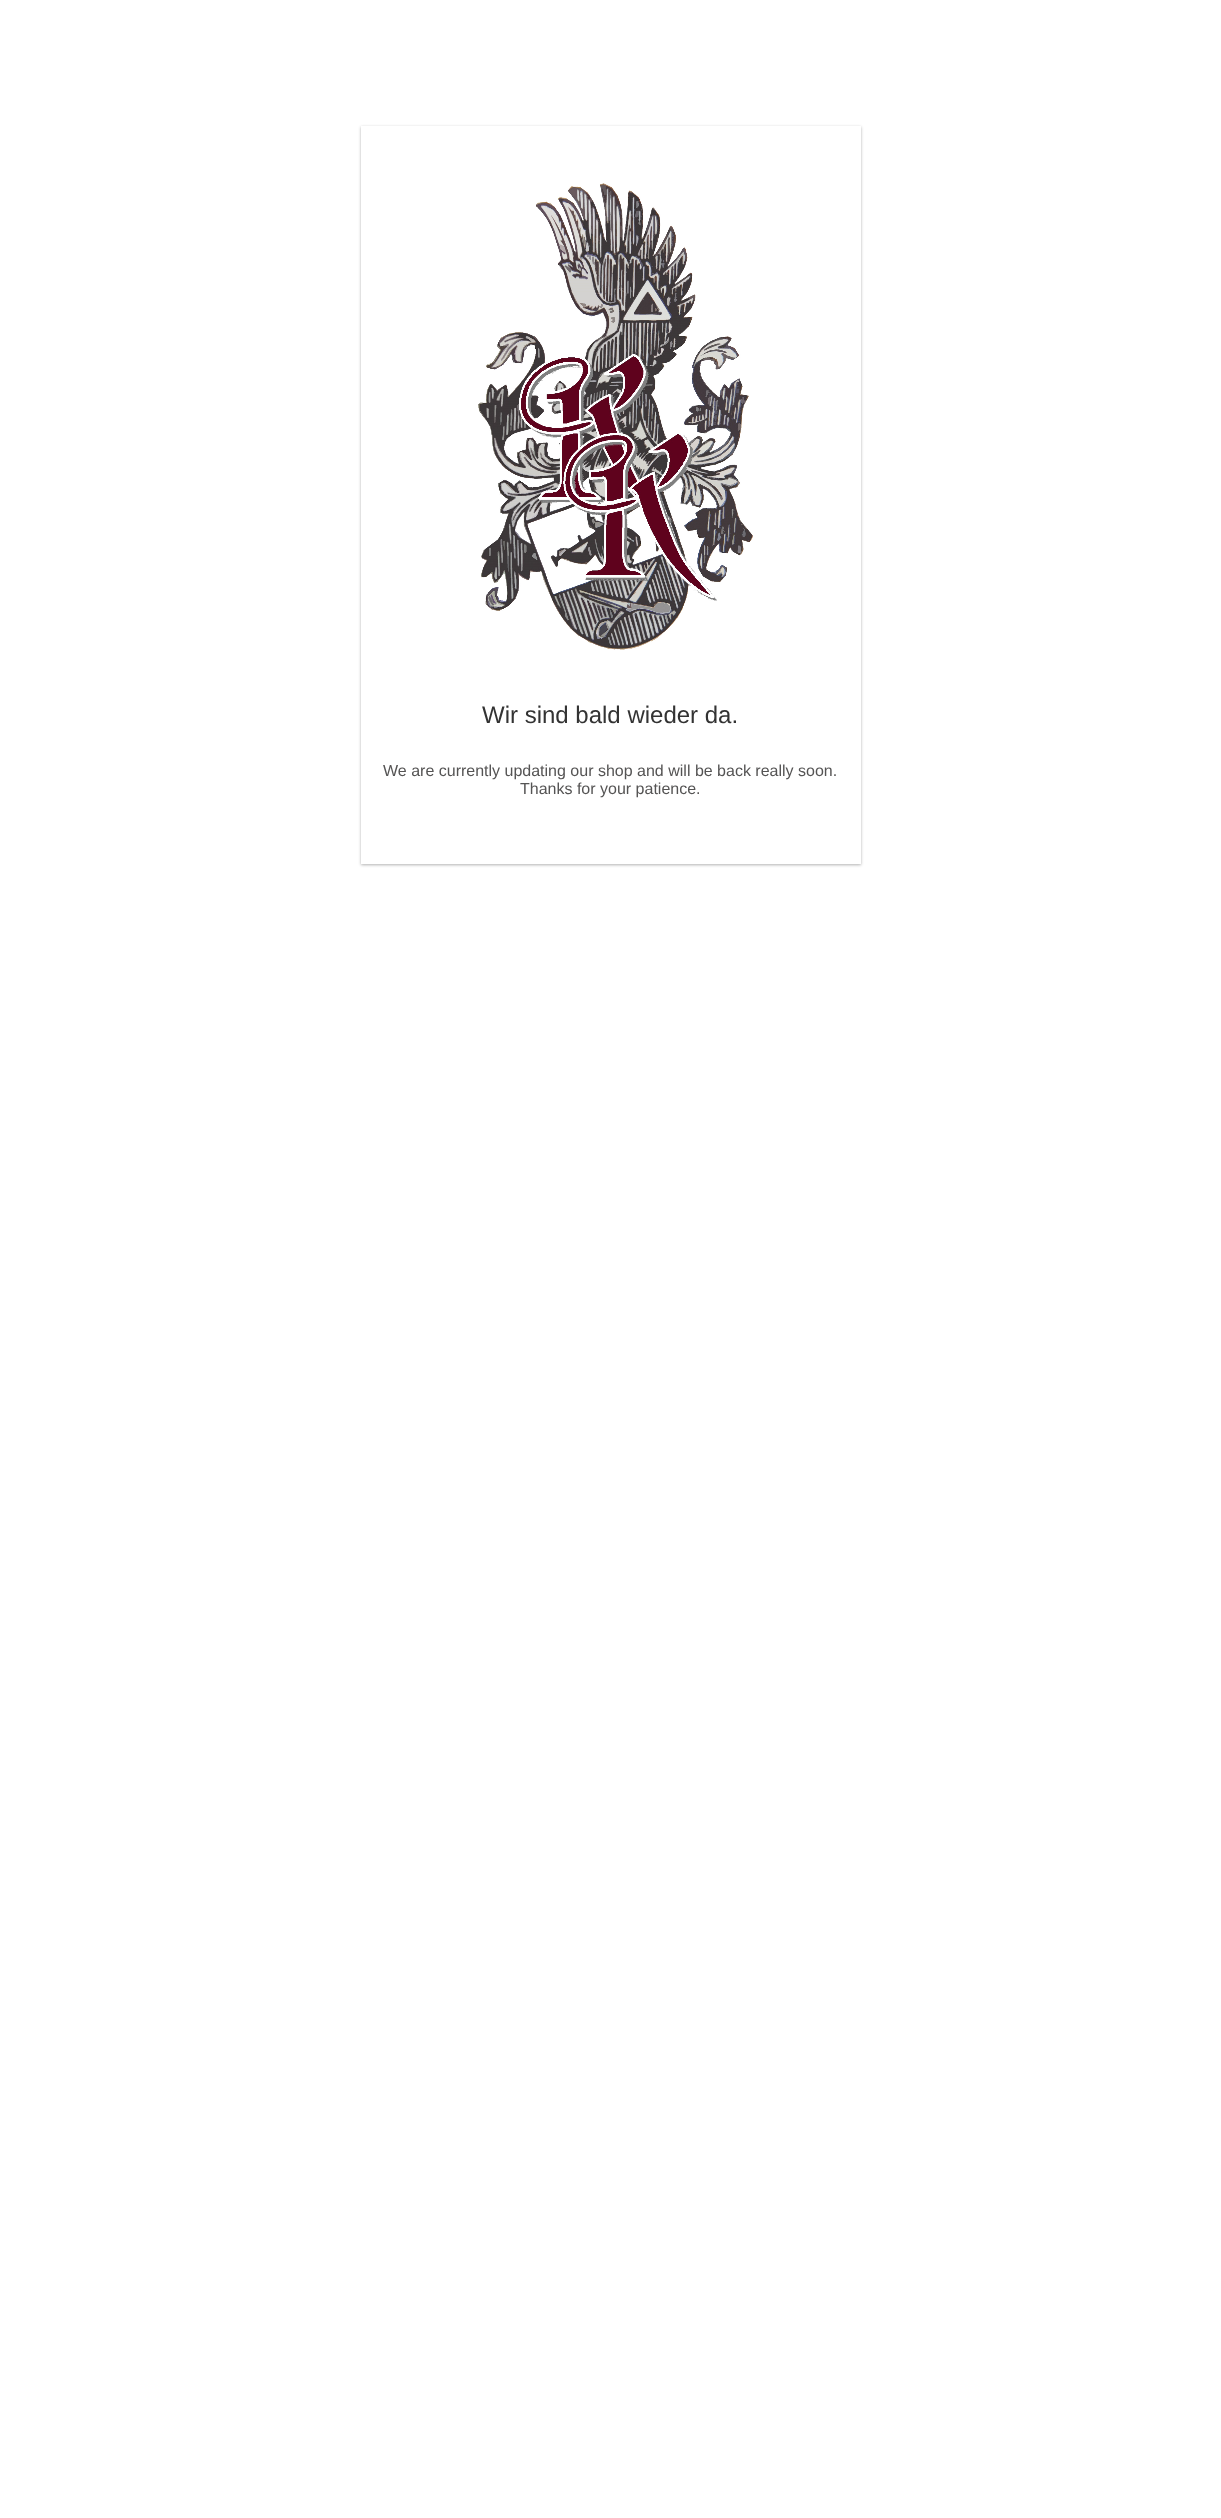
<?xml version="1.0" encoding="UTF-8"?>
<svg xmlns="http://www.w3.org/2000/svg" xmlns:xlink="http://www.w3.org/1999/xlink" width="1221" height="2518">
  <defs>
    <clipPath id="clip1"><path d="M 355 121 h 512 v 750 h -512 z m 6 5 h 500 v 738 h -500 z" clip-rule="evenodd" /></clipPath>
  </defs>
  <rect width="100%" height="100%" fill="#ffffff" />
  <g clip-path="url(#clip1)">
    <rect x="361" y="127" width="500" height="738" fill="#000000" fill-opacity="0.3" filter="blur(1.5px)" />
  </g>
  <image x="478" y="183" width="275" height="467" xlink:href="image1.png" />
  <text x="482" y="723" style="font-family: Liberation Sans; font-size: 24px; fill: #333333">Wir sind bald wieder da.</text>
  <text x="383" y="776" style="font-family: Liberation Sans; font-size: 16px; fill: #555454">We are currently updating our shop and will be back really soon.</text>
  <text x="520" y="794" style="font-family: Liberation Sans; font-size: 16px; fill: #555454">Thanks for your patience.</text>
</svg>
